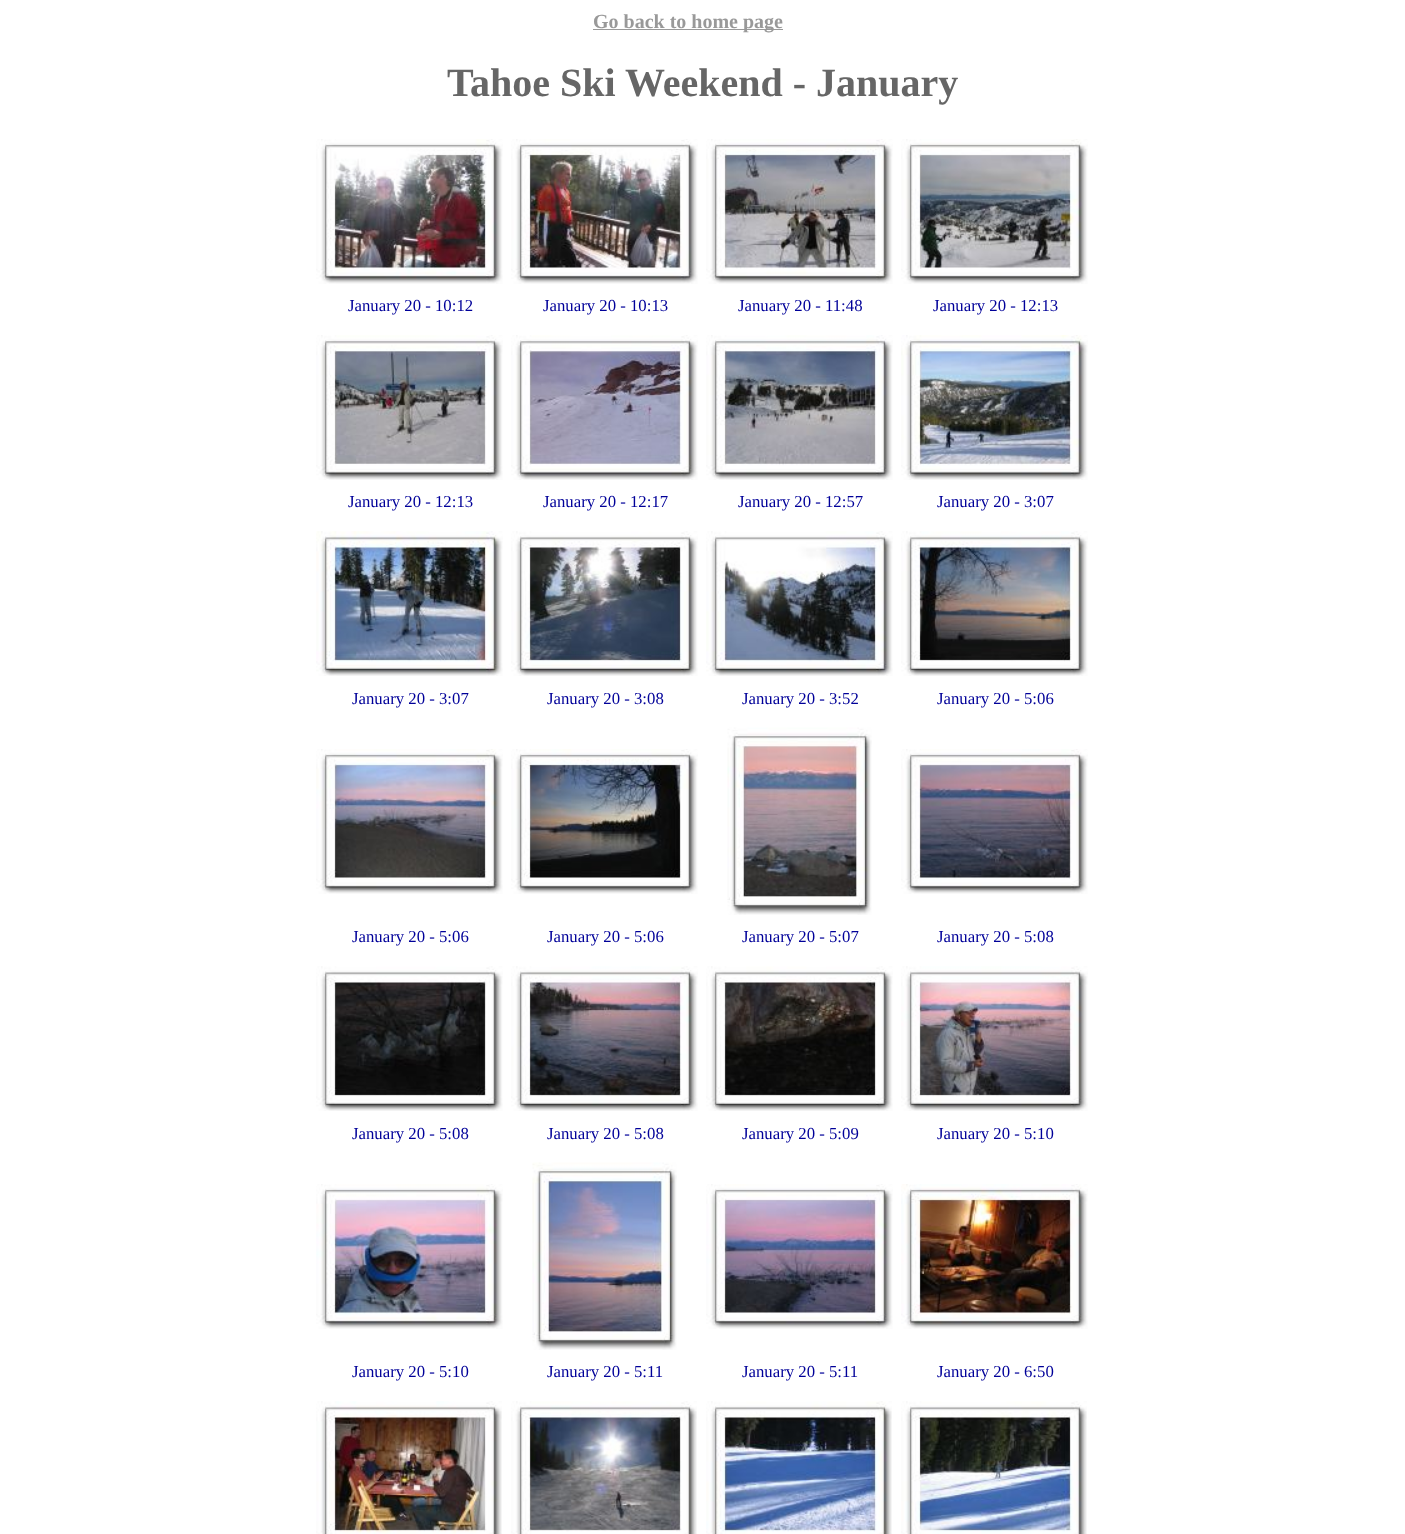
<?xml version="1.0" encoding="UTF-8"?>
<svg xmlns="http://www.w3.org/2000/svg" xmlns:xlink="http://www.w3.org/1999/xlink" width="1405" height="1534">
  <rect width="100%" height="100%" fill="#ffffff" />
  <rect x="593" y="29" width="190" height="1" fill="#999999" />
  <image x="316" y="139" width="187" height="145" xlink:href="image1.png" />
  <image x="511" y="139" width="187" height="145" xlink:href="image2.png" />
  <image x="706" y="139" width="187" height="145" xlink:href="image3.png" />
  <image x="901" y="139" width="187" height="145" xlink:href="image4.png" />
  <image x="316" y="335" width="187" height="145" xlink:href="image5.png" />
  <image x="511" y="335" width="187" height="145" xlink:href="image6.png" />
  <image x="706" y="335" width="187" height="145" xlink:href="image7.png" />
  <image x="901" y="335" width="187" height="145" xlink:href="image8.png" />
  <image x="316" y="531" width="187" height="145" xlink:href="image9.png" />
  <image x="511" y="531" width="187" height="145" xlink:href="image10.png" />
  <image x="706" y="531" width="187" height="145" xlink:href="image11.png" />
  <image x="901" y="531" width="187" height="145" xlink:href="image12.png" />
  <image x="316" y="749" width="187" height="145" xlink:href="image13.png" />
  <image x="511" y="749" width="187" height="145" xlink:href="image14.png" />
  <image x="727" y="727" width="145" height="188" xlink:href="image15.png" />
  <image x="901" y="749" width="187" height="145" xlink:href="image16.png" />
  <image x="316" y="966" width="187" height="145" xlink:href="image17.png" />
  <image x="511" y="966" width="187" height="145" xlink:href="image18.png" />
  <image x="706" y="966" width="187" height="145" xlink:href="image19.png" />
  <image x="901" y="966" width="187" height="145" xlink:href="image20.png" />
  <image x="316" y="1184" width="187" height="145" xlink:href="image21.png" />
  <image x="532" y="1162" width="145" height="188" xlink:href="image22.png" />
  <image x="706" y="1184" width="187" height="145" xlink:href="image23.png" />
  <image x="901" y="1184" width="187" height="145" xlink:href="image24.png" />
  <image x="316" y="1401" width="186" height="133" xlink:href="image25.png" />
  <image x="511" y="1401" width="186" height="133" xlink:href="image26.png" />
  <image x="706" y="1401" width="186" height="133" xlink:href="image27.png" />
  <image x="901" y="1401" width="186" height="133" xlink:href="image28.png" />
  <text x="593" y="28" style="font-family: Liberation Serif; font-size: 20px; font-weight: bold; fill: #999999">Go back to home page</text>
  <text x="447" y="96" style="font-family: Liberation Serif; font-size: 40px; font-weight: bold; fill: #666666">Tahoe Ski Weekend - January</text>
  <text x="348" y="311" style="font-family: Liberation Serif; font-size: 16.75px; fill: #000099">January 20 - 10:12</text>
  <text x="543" y="311" style="font-family: Liberation Serif; font-size: 16.75px; fill: #000099">January 20 - 10:13</text>
  <text x="738" y="311" style="font-family: Liberation Serif; font-size: 16.75px; fill: #000099">January 20 - 11:48</text>
  <text x="933" y="311" style="font-family: Liberation Serif; font-size: 16.75px; fill: #000099">January 20 - 12:13</text>
  <text x="348" y="507" style="font-family: Liberation Serif; font-size: 16.75px; fill: #000099">January 20 - 12:13</text>
  <text x="543" y="507" style="font-family: Liberation Serif; font-size: 16.75px; fill: #000099">January 20 - 12:17</text>
  <text x="738" y="507" style="font-family: Liberation Serif; font-size: 16.75px; fill: #000099">January 20 - 12:57</text>
  <text x="937" y="507" style="font-family: Liberation Serif; font-size: 16.75px; fill: #000099">January 20 - 3:07</text>
  <text x="352" y="704" style="font-family: Liberation Serif; font-size: 16.75px; fill: #000099">January 20 - 3:07</text>
  <text x="547" y="704" style="font-family: Liberation Serif; font-size: 16.75px; fill: #000099">January 20 - 3:08</text>
  <text x="742" y="704" style="font-family: Liberation Serif; font-size: 16.75px; fill: #000099">January 20 - 3:52</text>
  <text x="937" y="704" style="font-family: Liberation Serif; font-size: 16.75px; fill: #000099">January 20 - 5:06</text>
  <text x="352" y="942" style="font-family: Liberation Serif; font-size: 16.75px; fill: #000099">January 20 - 5:06</text>
  <text x="547" y="942" style="font-family: Liberation Serif; font-size: 16.75px; fill: #000099">January 20 - 5:06</text>
  <text x="742" y="942" style="font-family: Liberation Serif; font-size: 16.75px; fill: #000099">January 20 - 5:07</text>
  <text x="937" y="942" style="font-family: Liberation Serif; font-size: 16.75px; fill: #000099">January 20 - 5:08</text>
  <text x="352" y="1139" style="font-family: Liberation Serif; font-size: 16.75px; fill: #000099">January 20 - 5:08</text>
  <text x="547" y="1139" style="font-family: Liberation Serif; font-size: 16.75px; fill: #000099">January 20 - 5:08</text>
  <text x="742" y="1139" style="font-family: Liberation Serif; font-size: 16.75px; fill: #000099">January 20 - 5:09</text>
  <text x="937" y="1139" style="font-family: Liberation Serif; font-size: 16.75px; fill: #000099">January 20 - 5:10</text>
  <text x="352" y="1377" style="font-family: Liberation Serif; font-size: 16.75px; fill: #000099">January 20 - 5:10</text>
  <text x="547" y="1377" style="font-family: Liberation Serif; font-size: 16.75px; fill: #000099">January 20 - 5:11</text>
  <text x="742" y="1377" style="font-family: Liberation Serif; font-size: 16.75px; fill: #000099">January 20 - 5:11</text>
  <text x="937" y="1377" style="font-family: Liberation Serif; font-size: 16.75px; fill: #000099">January 20 - 6:50</text>
</svg>
